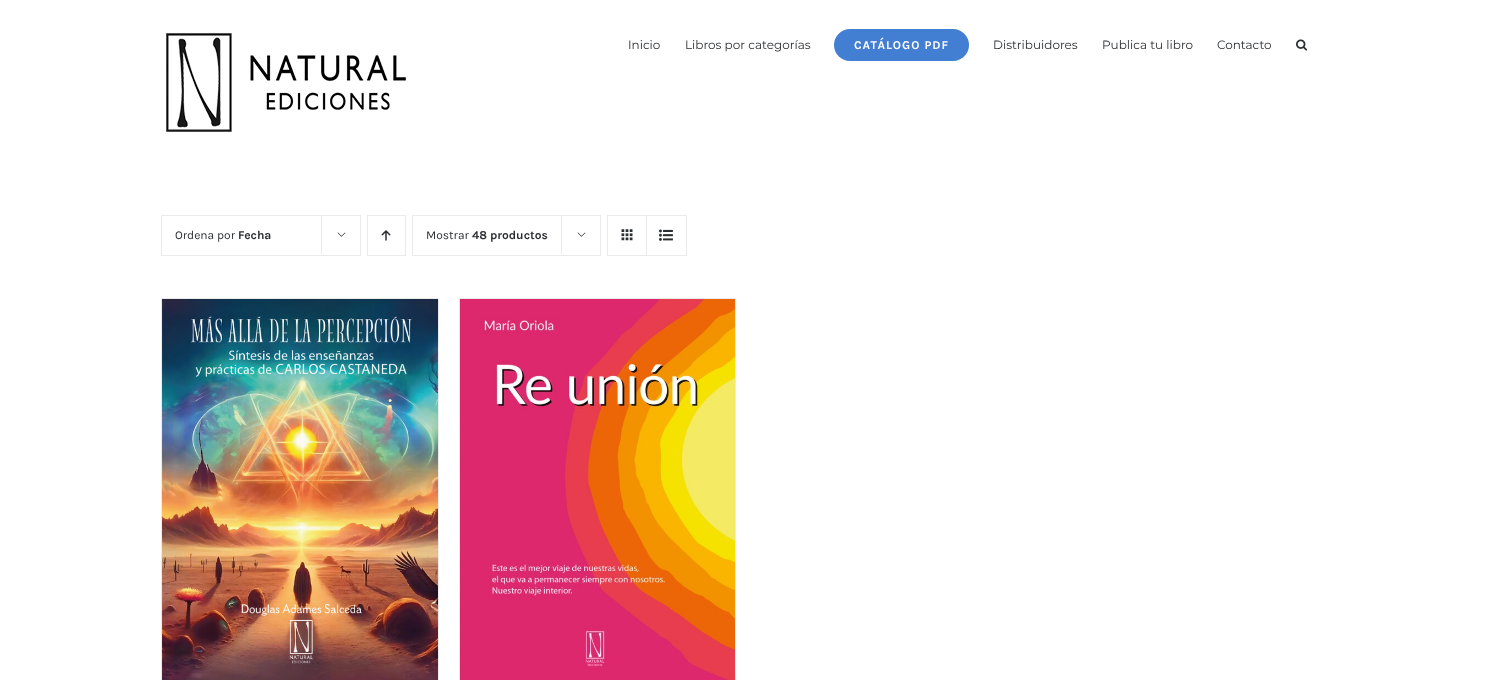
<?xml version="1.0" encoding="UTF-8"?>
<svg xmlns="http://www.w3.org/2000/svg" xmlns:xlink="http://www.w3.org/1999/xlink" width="1492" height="680">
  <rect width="100%" height="100%" fill="#ffffff" />
  <image x="166" y="33" width="240" height="99" xlink:href="image1.png" />
  <rect x="834" y="29" width="135" height="32" rx="16" fill="#427ed1" />
  <image x="1296" y="39" width="12" height="12" xlink:href="image2.png" />
  <rect x="161.5" y="215.5" width="199" height="40" fill="none" stroke="#eaeaea" />
  <rect x="321" y="215" width="1" height="39" fill="#eaeaea" />
  <image x="337" y="232" width="9" height="5" xlink:href="image3.png" />
  <rect x="367.5" y="215.5" width="38" height="40" fill="none" stroke="#eaeaea" />
  <image x="381" y="230" width="10" height="11" xlink:href="image4.png" />
  <rect x="412.5" y="215.5" width="188" height="40" fill="none" stroke="#eaeaea" />
  <rect x="561" y="215" width="1" height="39" fill="#eaeaea" />
  <image x="577" y="232" width="9" height="5" xlink:href="image3.png" />
  <rect x="607.5" y="215.5" width="79" height="40" fill="none" stroke="#eaeaea" />
  <rect x="646" y="216" width="1" height="39" fill="#eaeaea" />
  <image x="621" y="229" width="12" height="12" xlink:href="image5.png" />
  <image x="659" y="229" width="14" height="12" xlink:href="image6.png" />
  <rect x="161" y="298" width="278" height="1" fill="#eaeaea" />
  <rect x="438" y="298" width="1" height="382" fill="#eaeaea" />
  <rect x="161" y="298" width="1" height="382" fill="#eaeaea" />
  <image x="162" y="299" width="276" height="381" xlink:href="image7.png" />
  <rect x="459" y="298" width="277" height="1" fill="#eaeaea" />
  <rect x="735" y="298" width="1" height="382" fill="#eaeaea" />
  <rect x="459" y="298" width="1" height="382" fill="#eaeaea" />
  <image x="460" y="299" width="275" height="381" xlink:href="image8.png" />
  <text x="628" y="49" style="font-family: Montserrat; font-size: 12px; fill: #2b2e32">Inicio</text>
  <text x="685" y="49" style="font-family: Montserrat; font-size: 12px; fill: #2b2e32">Libros por categorías</text>
  <text x="854" y="49" style="font-family: Karla; font-size: 12px; font-weight: bold; letter-spacing: 1px; fill: #ffffff">CATÁLOGO PDF</text>
  <text x="993" y="49" style="font-family: Montserrat; font-size: 12px; fill: #2b2e32">Distribuidores</text>
  <text x="1102" y="49" style="font-family: Montserrat; font-size: 12px; fill: #2b2e32">Publica tu libro</text>
  <text x="1217" y="49" style="font-family: Montserrat; font-size: 12px; fill: #2b2e32">Contacto</text>
  <text x="175" y="239" style="font-family: Karla; font-size: 12px; fill: #2b2e32">Ordena por</text>
  <text x="238" y="239" style="font-family: Karla; font-size: 12px; font-weight: bold; fill: #2b2e32">Fecha</text>
  <text x="426" y="239" style="font-family: Karla; font-size: 12px; fill: #2b2e32">Mostrar</text>
  <text x="472" y="239" style="font-family: Karla; font-size: 12px; font-weight: bold; fill: #2b2e32">48 productos</text>
</svg>
